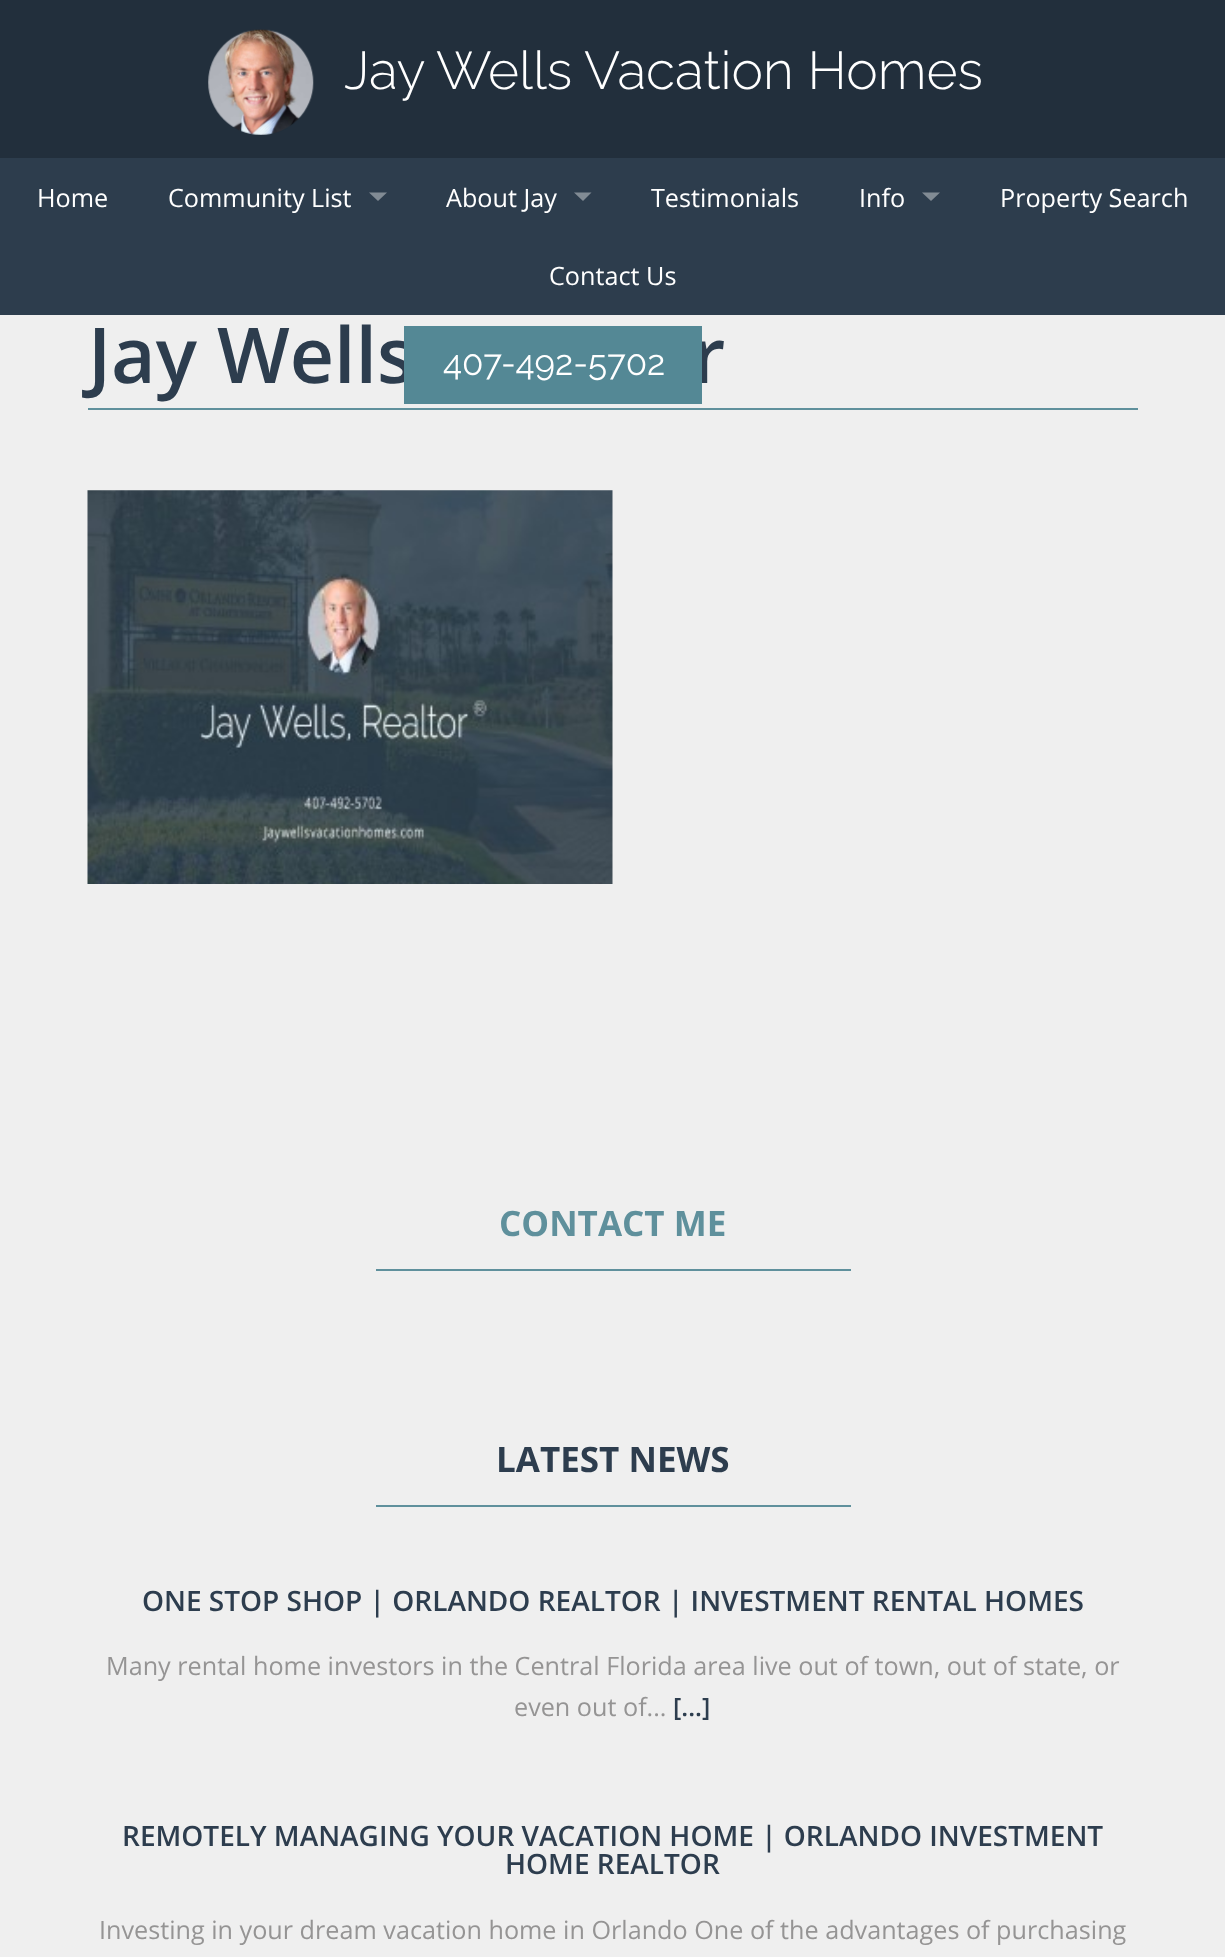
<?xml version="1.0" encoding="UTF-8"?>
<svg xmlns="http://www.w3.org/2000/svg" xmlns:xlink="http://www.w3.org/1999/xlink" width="1225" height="1957">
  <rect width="100%" height="100%" fill="#efefef" />
  <rect width="1225" height="158" fill="#222f3c" />
  <image x="208" y="29" width="106" height="106" xlink:href="image1.png" />
  <rect y="158" width="1225" height="157" fill="#2d3d4d" />
  <path d="M 369 192.5 h 18 l -9 8.5 z" fill="#818b94" />
  <path d="M 574 192.5 h 17.5 l -8.5 8.5 z" fill="#818b94" />
  <path d="M 922 192.5 h 18 l -9 8.5 z" fill="#818b94" />
  <rect x="88" y="408" width="1050" height="2" fill="#5f909c" />
  <image x="87" y="490" width="526" height="394" xlink:href="image2.png" />
  <rect x="376" y="1269" width="475" height="2" fill="#5f909c" />
  <rect x="376" y="1505" width="475" height="2" fill="#5f909c" />
  <text x="344" y="89" style="font-family: Raleway; font-size: 53.25px; font-weight: 300; fill: #ffffff">Jay Wells Vacation Homes</text>
  <text x="37" y="207" style="font-family: Open Sans; font-size: 25.2px; fill: #ffffff">Home</text>
  <text x="168" y="207" style="font-family: Open Sans; font-size: 25.2px; fill: #ffffff">Community List</text>
  <text x="446" y="207" style="font-family: Open Sans; font-size: 25.2px; fill: #ffffff">About Jay</text>
  <text x="651" y="207" style="font-family: Open Sans; font-size: 25.2px; fill: #ffffff">Testimonials</text>
  <text x="859" y="207" style="font-family: Open Sans; font-size: 25.2px; fill: #ffffff">Info</text>
  <text x="1000" y="207" style="font-family: Open Sans; font-size: 25.2px; fill: #ffffff">Property Search</text>
  <text x="549" y="285" style="font-family: Open Sans; font-size: 25.2px; fill: #ffffff">Contact Us</text>
  <text x="88" y="383" style="font-family: Open Sans; font-size: 77px; font-weight: 600; fill: #2d3d4e">Jay Wells</text>
  <text x="692" y="383" style="font-family: Open Sans; font-size: 77px; font-weight: 600; fill: #2d3d4e">r</text>
  <text x="499" y="1236" style="font-family: Open Sans; font-size: 35px; font-weight: bold; fill: #5f909c">CONTACT ME</text>
  <text x="496" y="1472" style="font-family: Open Sans; font-size: 35px; font-weight: bold; fill: #2d3d4e">LATEST NEWS</text>
  <text x="142" y="1611" style="font-family: Open Sans; font-size: 28px; font-weight: 600; fill: #2d3d4e">ONE STOP SHOP | ORLANDO REALTOR | INVESTMENT RENTAL HOMES</text>
  <text x="106" y="1675" style="font-family: Open Sans; font-size: 25.2px; fill: #959494">Many rental home investors in the Central Florida area live out of town, out of state, or</text>
  <text x="514" y="1716" style="font-family: Open Sans; font-size: 25.2px; fill: #959494">even out of...</text>
  <text x="673" y="1716" style="font-family: Open Sans; font-size: 25.2px; font-weight: 600; fill: #2d3d4e">[...]</text>
  <text x="122" y="1846" style="font-family: Open Sans; font-size: 28px; font-weight: 600; fill: #2d3d4e">REMOTELY MANAGING YOUR VACATION HOME | ORLANDO INVESTMENT</text>
  <text x="505" y="1874" style="font-family: Open Sans; font-size: 28px; font-weight: 600; fill: #2d3d4e">HOME REALTOR</text>
  <text x="99" y="1939" style="font-family: Open Sans; font-size: 25.2px; fill: #959494">Investing in your dream vacation home in Orlando One of the advantages of purchasing</text>
  <rect x="404" y="326" width="298" height="78" fill="#548895" />
  <text x="443" y="375" style="font-family: Raleway; font-size: 35px; fill: #ffffff">407-492-5702</text>
</svg>
